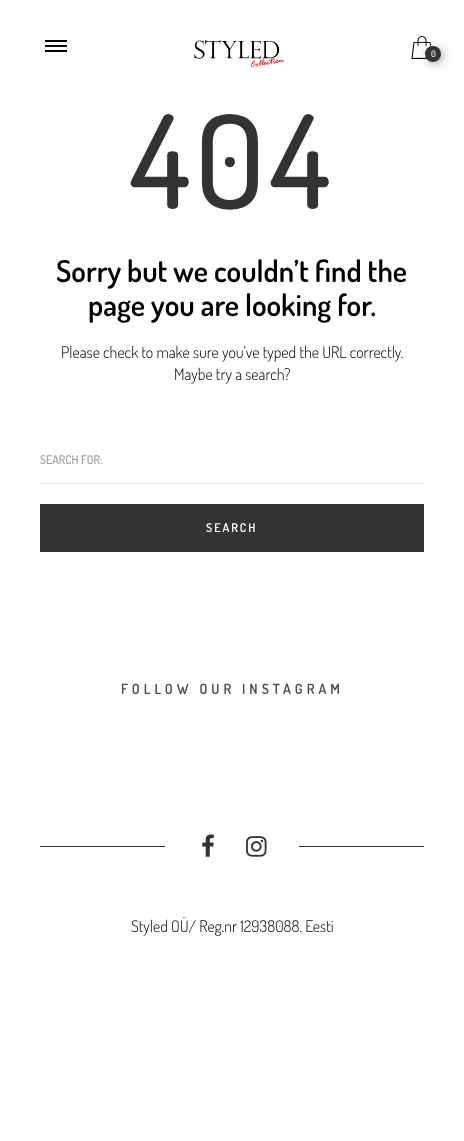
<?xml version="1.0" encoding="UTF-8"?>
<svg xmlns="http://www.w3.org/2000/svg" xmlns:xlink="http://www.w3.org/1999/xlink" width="464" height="1141">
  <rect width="100%" height="100%" fill="#ffffff" />
  <rect x="45" y="45" width="22" height="2" fill="#000000" />
  <rect x="45" y="40" width="22" height="2" fill="#000000" />
  <rect x="45" y="50" width="22" height="2" fill="#000000" />
  <image x="194" y="39" width="90" height="29" xlink:href="image1.png" />
  <image x="411" y="36" width="21" height="23" xlink:href="image2.png" />
  <rect x="427" y="48" width="16" height="16" rx="8" fill="#2b2b2b" fill-opacity="0.4" filter="blur(5px)" />
  <circle cx="433" cy="54" r="8" fill="#333333" />
  <rect x="40" y="483" width="384" height="1" fill="#e6e6e6" />
  <rect x="40" y="504" width="384" height="48" fill="#333333" />
  <rect x="40" y="846" width="384" height="1" fill="#333333" />
  <rect x="165" y="846" width="134" height="1" fill="#ffffff" />
  <image x="202" y="834" width="12" height="23" xlink:href="image3.png" />
  <image x="246" y="836" width="21" height="21" xlink:href="image4.png" />
  <text x="431" y="57" style="font-family: Dosis; font-size: 9px; font-weight: 500; fill: #ffffff">0</text>
  <text x="130" y="209" style="font-family: Dosis; font-size: 130px; font-weight: 500; letter-spacing: 5px; fill: #333333">404</text>
  <text x="56" y="282" style="font-family: Dosis; font-size: 30px; font-weight: 600; fill: #000000">Sorry but we couldn’t find the</text>
  <text x="88" y="316" style="font-family: Dosis; font-size: 30px; font-weight: 600; fill: #000000">page you are looking for.</text>
  <text x="61" y="358" style="font-family: Dosis; font-size: 16px; font-weight: 300; fill: #000000">Please check to make sure you’ve typed the URL correctly.</text>
  <text x="174" y="380" style="font-family: Dosis; font-size: 16px; font-weight: 300; fill: #000000">Maybe try a search?</text>
  <text x="40" y="464" style="font-family: Dosis; font-size: 12px; font-weight: 500; fill: #999999">SEARCH FOR:</text>
  <text x="206" y="532" style="font-family: Dosis; font-size: 12px; font-weight: 600; letter-spacing: 2px; fill: #ffffff">SEARCH</text>
  <text x="121" y="694" style="font-family: Dosis; font-size: 14px; font-weight: 600; letter-spacing: 4px; fill: #4d4d4d">FOLLOW OUR INSTAGRAM</text>
  <text x="131" y="932" style="font-family: Dosis; font-size: 16px; font-weight: 300; fill: #000000">Styled OÜ/ Reg.nr 12938088. Eesti</text>
</svg>
